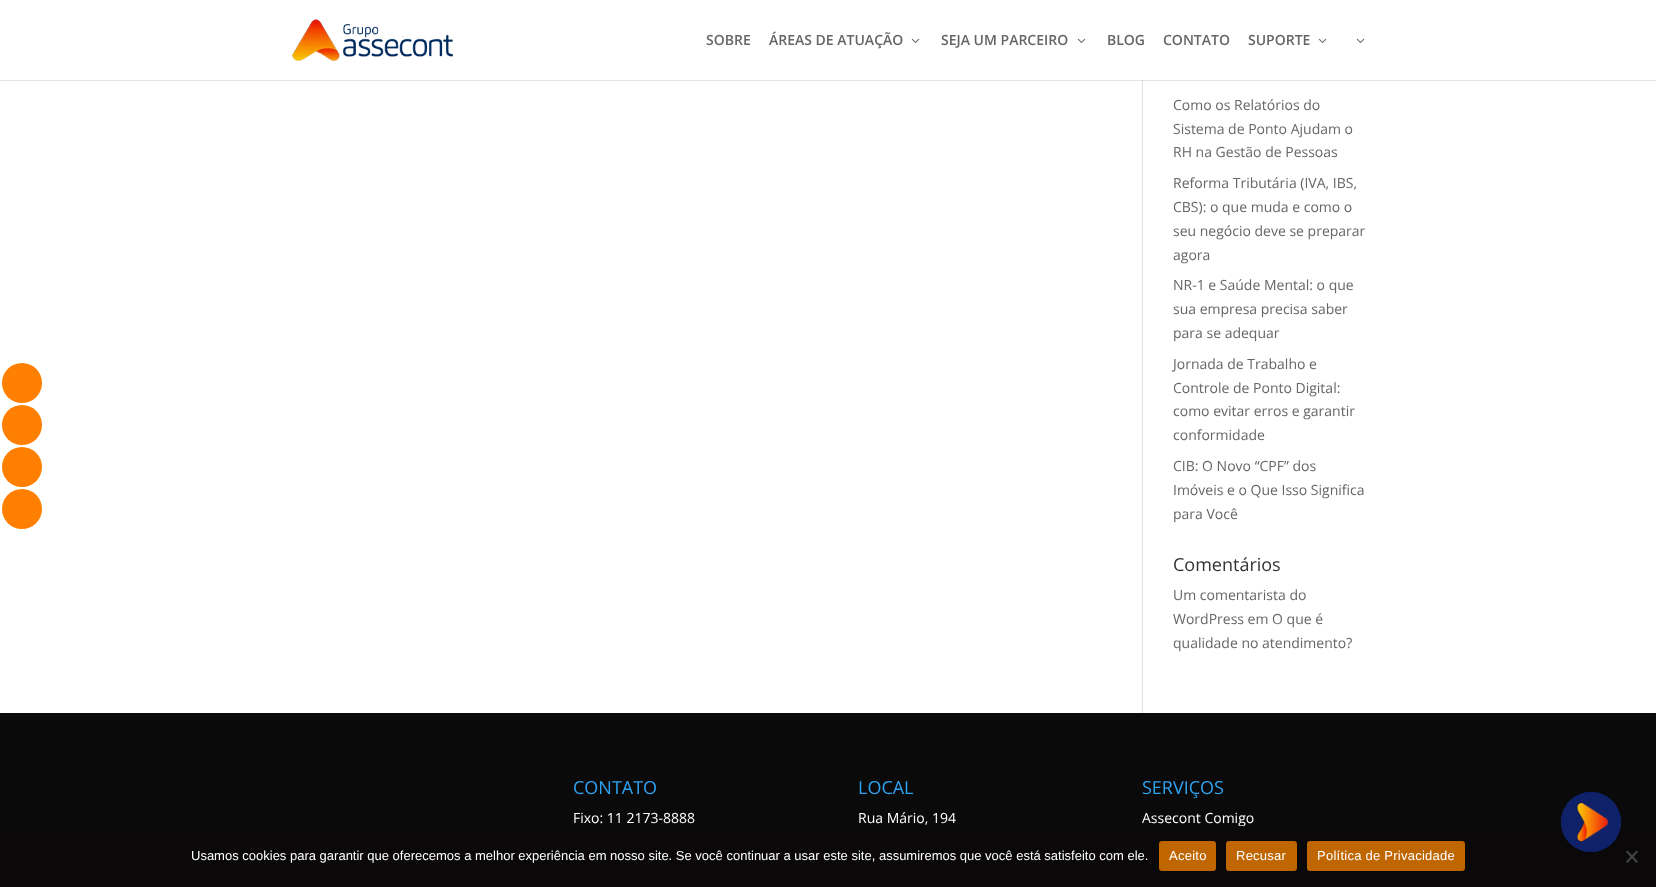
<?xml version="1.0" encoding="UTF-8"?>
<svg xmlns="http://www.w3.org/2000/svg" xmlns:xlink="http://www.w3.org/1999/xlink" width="1656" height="887">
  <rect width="100%" height="100%" fill="#ffffff" />
  <circle cx="22" cy="383" r="20" fill="#ff8000" />
  <circle cx="22" cy="425" r="20" fill="#ff8000" />
  <circle cx="22" cy="467" r="20" fill="#ff8000" />
  <circle cx="22" cy="509" r="20" fill="#ff8000" />
  <rect x="1142" y="80" width="1" height="633" fill="#e2e2e2" />
  <rect y="80" width="1656" height="1" fill="#000000" fill-opacity="0.1" />
  <image x="292" y="19" width="161" height="42" xlink:href="image1.png" />
  <image x="911" y="38" width="9" height="5" xlink:href="image2.png" />
  <image x="1077" y="38" width="9" height="5" xlink:href="image2.png" />
  <image x="1318" y="38" width="9" height="5" xlink:href="image2.png" />
  <image x="1356" y="38" width="9" height="5" xlink:href="image2.png" />
  <rect y="713" width="1656" height="113" fill="#0a0a0a" />
  <text x="706" y="45" style="font-family: Open Sans; font-size: 14px; font-weight: 600; fill: #666666">SOBRE</text>
  <text x="769" y="45" style="font-family: Open Sans; font-size: 14px; font-weight: 600; fill: #666666">ÁREAS DE ATUAÇÃO</text>
  <text x="941" y="45" style="font-family: Open Sans; font-size: 14px; font-weight: 600; fill: #666666">SEJA UM PARCEIRO</text>
  <text x="1107" y="45" style="font-family: Open Sans; font-size: 14px; font-weight: 600; fill: #666666">BLOG</text>
  <text x="1163" y="45" style="font-family: Open Sans; font-size: 14px; font-weight: 600; fill: #666666">CONTATO</text>
  <text x="1248" y="45" style="font-family: Open Sans; font-size: 14px; font-weight: 600; fill: #666666">SUPORTE</text>
  <text x="1173" y="110" style="font-family: Open Sans; font-size: 14px; fill: #666666">Como os Relatórios do</text>
  <text x="1173" y="134" style="font-family: Open Sans; font-size: 14px; fill: #666666">Sistema de Ponto Ajudam o</text>
  <text x="1173" y="157" style="font-family: Open Sans; font-size: 14px; fill: #666666">RH na Gestão de Pessoas</text>
  <text x="1173" y="188" style="font-family: Open Sans; font-size: 14px; fill: #666666">Reforma Tributária (IVA, IBS,</text>
  <text x="1173" y="212" style="font-family: Open Sans; font-size: 14px; fill: #666666">CBS): o que muda e como o</text>
  <text x="1173" y="236" style="font-family: Open Sans; font-size: 14px; fill: #666666">seu negócio deve se preparar</text>
  <text x="1173" y="260" style="font-family: Open Sans; font-size: 14px; fill: #666666">agora</text>
  <text x="1173" y="290" style="font-family: Open Sans; font-size: 14px; fill: #666666">NR-1 e Saúde Mental: o que</text>
  <text x="1173" y="314" style="font-family: Open Sans; font-size: 14px; fill: #666666">sua empresa precisa saber</text>
  <text x="1173" y="338" style="font-family: Open Sans; font-size: 14px; fill: #666666">para se adequar</text>
  <text x="1173" y="369" style="font-family: Open Sans; font-size: 14px; fill: #666666">Jornada de Trabalho e</text>
  <text x="1173" y="393" style="font-family: Open Sans; font-size: 14px; fill: #666666">Controle de Ponto Digital:</text>
  <text x="1173" y="416" style="font-family: Open Sans; font-size: 14px; fill: #666666">como evitar erros e garantir</text>
  <text x="1173" y="440" style="font-family: Open Sans; font-size: 14px; fill: #666666">conformidade</text>
  <text x="1173" y="471" style="font-family: Open Sans; font-size: 14px; fill: #666666">CIB: O Novo “CPF” dos</text>
  <text x="1173" y="495" style="font-family: Open Sans; font-size: 14px; fill: #666666">Imóveis e o Que Isso Significa</text>
  <text x="1173" y="519" style="font-family: Open Sans; font-size: 14px; fill: #666666">para Você</text>
  <text x="1173" y="571" style="font-family: Open Sans; font-size: 18px; fill: #333333">Comentários</text>
  <text x="1173" y="600" style="font-family: Open Sans; font-size: 14px; fill: #666666">Um comentarista do</text>
  <text x="1173" y="624" style="font-family: Open Sans; font-size: 14px; fill: #666666">WordPress em O que é</text>
  <text x="1173" y="648" style="font-family: Open Sans; font-size: 14px; fill: #666666">qualidade no atendimento?</text>
  <text x="573" y="794" style="font-family: Open Sans; font-size: 18px; fill: #2ea3f2">CONTATO</text>
  <text x="573" y="823" style="font-family: Open Sans; font-size: 14px; fill: #ffffff">Fixo: 11 2173-8888</text>
  <text x="858" y="794" style="font-family: Open Sans; font-size: 18px; fill: #2ea3f2">LOCAL</text>
  <text x="858" y="823" style="font-family: Open Sans; font-size: 14px; fill: #ffffff">Rua Mário, 194</text>
  <text x="1142" y="794" style="font-family: Open Sans; font-size: 18px; fill: #2ea3f2">SERVIÇOS</text>
  <text x="1142" y="823" style="font-family: Open Sans; font-size: 14px; fill: #ffffff">Assecont Comigo</text>
  <rect y="826" width="1656" height="61" fill="#0a0808" />
  <circle cx="1591" cy="822" r="30" fill="#0f2269" />
  <image x="1561" y="792" width="60" height="60" xlink:href="image3.png" />
  <text x="191" y="860" style="font-family: Liberation Sans; font-size: 13px; fill: #ffffff">Usamos cookies para garantir que oferecemos a melhor experiência em nosso site. Se você continuar a usar este site, assumiremos que você está satisfeito com ele.</text>
  <rect x="1159" y="841" width="57" height="30" rx="3" fill="#bf6600" />
  <text x="1169" y="860" style="font-family: Liberation Sans; font-size: 13px; letter-spacing: 0.25px; fill: #ffffff">Aceito</text>
  <rect x="1226" y="841" width="71" height="30" rx="3" fill="#bf6600" />
  <text x="1236" y="860" style="font-family: Liberation Sans; font-size: 13px; letter-spacing: 0.25px; fill: #ffffff">Recusar</text>
  <rect x="1307" y="841" width="158" height="30" rx="3" fill="#bf6600" />
  <text x="1317" y="860" style="font-family: Liberation Sans; font-size: 13px; letter-spacing: 0.25px; fill: #ffffff">Política de Privacidade</text>
  <path d="M 1636.5 850.5 l 1.5 1.5 l -10.5 11 l -1.5 -1.5 z" fill="#454444" />
  <path d="M 1626 852 l 1.5 -1.5 l 10.5 11 l -1.5 1.5 z" fill="#454444" />
</svg>
